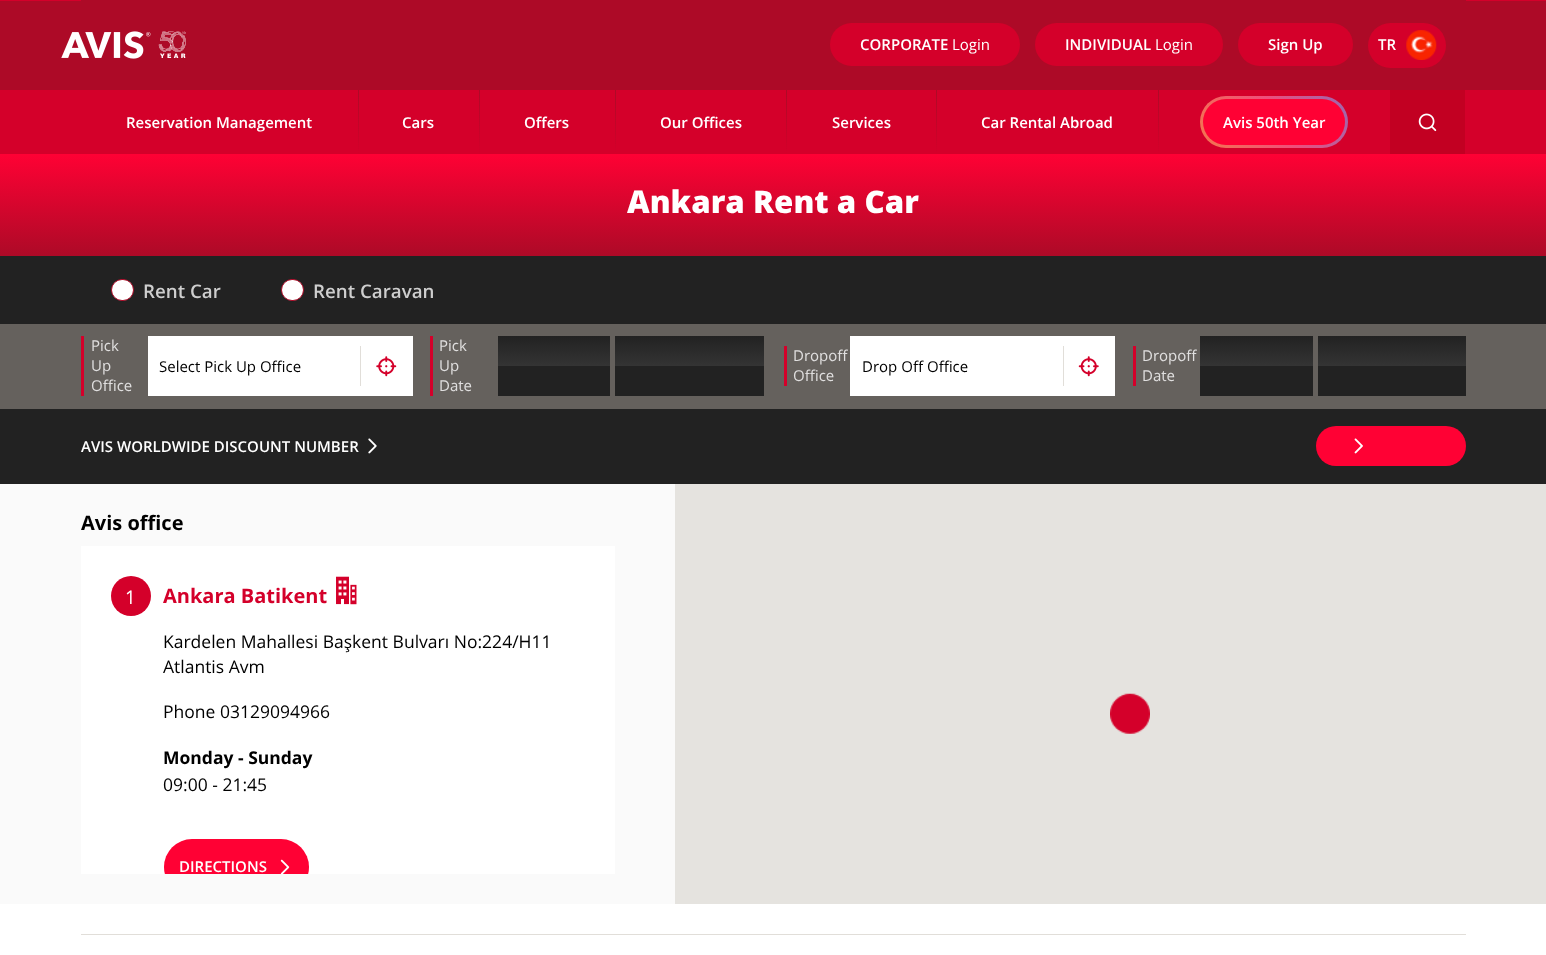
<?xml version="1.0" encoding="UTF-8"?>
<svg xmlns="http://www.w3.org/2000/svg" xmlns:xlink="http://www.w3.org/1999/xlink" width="1546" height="955">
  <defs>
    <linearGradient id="g1" gradientUnits="userSpaceOnUse" x1="358" y1="90" x2="358" y2="154"><stop offset="0" stop-color="#ad0a27" /><stop offset="1" stop-color="#d4002a" /></linearGradient>
    <linearGradient id="g2" gradientUnits="userSpaceOnUse" x1="479" y1="90" x2="479" y2="154"><stop offset="0" stop-color="#ad0a27" /><stop offset="1" stop-color="#d4002a" /></linearGradient>
    <linearGradient id="g3" gradientUnits="userSpaceOnUse" x1="616" y1="90" x2="616" y2="154"><stop offset="0" stop-color="#ad0a27" /><stop offset="1" stop-color="#d4002a" /></linearGradient>
    <linearGradient id="g4" gradientUnits="userSpaceOnUse" x1="787" y1="90" x2="787" y2="154"><stop offset="0" stop-color="#ad0a27" /><stop offset="1" stop-color="#d4002a" /></linearGradient>
    <linearGradient id="g5" gradientUnits="userSpaceOnUse" x1="937" y1="90" x2="937" y2="154"><stop offset="0" stop-color="#ad0a27" /><stop offset="1" stop-color="#d4002a" /></linearGradient>
    <linearGradient id="g6" gradientUnits="userSpaceOnUse" x1="1158" y1="90" x2="1158" y2="154"><stop offset="0" stop-color="#ad0a27" /><stop offset="1" stop-color="#d4002a" /></linearGradient>
    <linearGradient id="g7" gradientUnits="userSpaceOnUse" x1="1222" y1="288" x2="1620" y2="58"><stop offset="0" stop-color="#f79533" /><stop offset="0.14" stop-color="#f37055" /><stop offset="0.29" stop-color="#ef4e7b" /><stop offset="0.43" stop-color="#a166ab" /><stop offset="0.57" stop-color="#5073b8" /><stop offset="0.71" stop-color="#1098ad" /><stop offset="0.86" stop-color="#07b39b" /><stop offset="1" stop-color="#6fba82" /></linearGradient>
    <linearGradient id="g8" gradientUnits="userSpaceOnUse" x1="773" y1="154" x2="773" y2="256"><stop offset="0" stop-color="#ff0134" /><stop offset="1" stop-color="#ad0a27" /></linearGradient>
    <linearGradient id="g9" gradientUnits="userSpaceOnUse" x1="554" y1="336" x2="554" y2="366"><stop offset="0" stop-color="#222222" /><stop offset="1" stop-color="#343434" /></linearGradient>
    <linearGradient id="g10" gradientUnits="userSpaceOnUse" x1="689" y1="336" x2="689" y2="366"><stop offset="0" stop-color="#222222" /><stop offset="1" stop-color="#343434" /></linearGradient>
    <linearGradient id="g11" gradientUnits="userSpaceOnUse" x1="1256" y1="336" x2="1256" y2="366"><stop offset="0" stop-color="#222222" /><stop offset="1" stop-color="#343434" /></linearGradient>
    <linearGradient id="g12" gradientUnits="userSpaceOnUse" x1="1392" y1="336" x2="1392" y2="366"><stop offset="0" stop-color="#222222" /><stop offset="1" stop-color="#343434" /></linearGradient>
    <clipPath id="clip1"><rect x="81" y="546" width="554" height="328" /></clipPath>
  </defs>
  <rect width="100%" height="100%" fill="#ffffff" />
  <rect width="1546" height="154" fill="#d4002a" />
  <rect x="81" width="1385" height="90" fill="#ad0a27" />
  <rect y="1" width="81" height="89" fill="#ad0a27" />
  <image x="61" y="31" width="125" height="28" xlink:href="image1.png" />
  <rect x="830" y="23" width="190" height="43" rx="21.5" fill="#d4002a" />
  <rect x="1035" y="23" width="188" height="43" rx="21.5" fill="#d4002a" />
  <rect x="1238" y="23" width="115" height="43" rx="21.5" fill="#d4002a" />
  <rect x="1368" y="23" width="78" height="45" rx="22.5" fill="#d4002a" />
  <image x="1406" y="30" width="31" height="30" xlink:href="image2.png" />
  <rect x="1466" y="1" width="80" height="89" fill="#ad0a27" />
  <rect x="358" y="90" width="1" height="64" fill="url(#g1)" />
  <rect x="479" y="90" width="1" height="64" fill="url(#g2)" />
  <rect x="615" y="90" width="1" height="64" fill="url(#g3)" />
  <rect x="786" y="90" width="1" height="64" fill="url(#g4)" />
  <rect x="936" y="90" width="1" height="64" fill="url(#g5)" />
  <rect x="1158" y="90" width="1" height="64" fill="url(#g6)" />
  <rect x="1200" y="96" width="148" height="52" rx="26" fill="url(#g7)" />
  <rect x="1203" y="99" width="142" height="46" rx="23" fill="#ff0134" />
  <rect x="1390" y="90" width="75" height="64" fill="#c20022" />
  <image x="1418" y="113" width="19" height="19" xlink:href="image3.png" />
  <rect y="154" width="1546" height="102" fill="url(#g8)" />
  <rect y="256" width="1546" height="68" fill="#222222" />
  <rect x="111.5" y="279.5" width="22" height="21" rx="10.5" fill="#ffffff" stroke="#ad0a27" />
  <rect x="281.5" y="279.5" width="22" height="21" rx="10.5" fill="#ffffff" stroke="#ad0a27" />
  <rect y="324" width="1546" height="85" fill="#65615d" />
  <rect x="81" y="336" width="3" height="60" fill="#d4002a" />
  <rect x="148" y="336" width="265" height="60" fill="#ffffff" />
  <rect x="360" y="346" width="1" height="40" fill="#e1ded9" />
  <image x="376" y="356" width="21" height="21" xlink:href="image4.png" />
  <rect x="430" y="336" width="3" height="60" fill="#d4002a" />
  <rect x="498" y="366" width="112" height="30" fill="#222222" />
  <rect x="498" y="336" width="112" height="30" fill="url(#g9)" />
  <rect x="615" y="366" width="149" height="30" fill="#222222" />
  <rect x="615" y="336" width="149" height="30" fill="url(#g10)" />
  <rect x="784" y="346" width="3" height="40" fill="#d4002a" />
  <rect x="850" y="336" width="265" height="60" fill="#ffffff" />
  <rect x="1063" y="346" width="1" height="40" fill="#e1ded9" />
  <image x="1078" y="356" width="21" height="21" xlink:href="image5.png" />
  <rect x="1133" y="346" width="3" height="40" fill="#d4002a" />
  <rect x="1200" y="366" width="113" height="30" fill="#222222" />
  <rect x="1200" y="336" width="113" height="30" fill="url(#g11)" />
  <rect x="1318" y="366" width="148" height="30" fill="#222222" />
  <rect x="1318" y="336" width="148" height="30" fill="url(#g12)" />
  <rect y="409" width="1546" height="75" fill="#222222" />
  <image x="368" y="438" width="9" height="16" xlink:href="image6.png" />
  <rect x="1316" y="426" width="150" height="40" rx="20" fill="#ff0134" />
  <image x="1354" y="438" width="9" height="16" xlink:href="image7.png" />
  <rect y="484" width="675" height="420" fill="#fafafa" />
  <rect x="81" y="546" width="534" height="328" fill="#ffffff" />
  <circle cx="131" cy="596" r="20" fill="#d4002a" />
  <image x="336" y="576" width="21" height="29" xlink:href="image8.png" />
  <g clip-path="url(#clip1)">
    <rect x="164" y="839" width="145" height="56" rx="28" fill="#ff0134" />
  </g>
  <image x="280" y="859" width="10" height="15" xlink:href="image9.png" />
  <rect x="675" y="484" width="871" height="420" fill="#e5e3df" />
  <image x="1110" y="693" width="40" height="41" xlink:href="image10.png" />
  <rect x="81" y="934" width="1385" height="1" fill="#e1ded9" />
  <text x="860" y="50" style="font-family: Open Sans; font-size: 15px; font-weight: 600; fill: #ffffff">CORPORATE</text>
  <text x="952" y="50" style="font-family: Open Sans; font-size: 15px; fill: #ffffff">Login</text>
  <text x="1065" y="50" style="font-family: Open Sans; font-size: 15px; font-weight: 600; fill: #ffffff">INDIVIDUAL</text>
  <text x="1155" y="50" style="font-family: Open Sans; font-size: 15px; fill: #ffffff">Login</text>
  <text x="1268" y="50" style="font-family: Open Sans; font-size: 15px; font-weight: 600; fill: #ffffff">Sign Up</text>
  <text x="1378" y="50" style="font-family: Open Sans; font-size: 15px; font-weight: 600; fill: #ffffff">TR</text>
  <text x="126" y="128" style="font-family: Open Sans; font-size: 15px; font-weight: 600; fill: #ffffff">Reservation Management</text>
  <text x="402" y="128" style="font-family: Open Sans; font-size: 15px; font-weight: 600; fill: #ffffff">Cars</text>
  <text x="524" y="128" style="font-family: Open Sans; font-size: 15px; font-weight: 600; fill: #ffffff">Offers</text>
  <text x="660" y="128" style="font-family: Open Sans; font-size: 15px; font-weight: 600; fill: #ffffff">Our Offices</text>
  <text x="832" y="128" style="font-family: Open Sans; font-size: 15px; font-weight: 600; fill: #ffffff">Services</text>
  <text x="981" y="128" style="font-family: Open Sans; font-size: 15px; font-weight: 600; fill: #ffffff">Car Rental Abroad</text>
  <text x="1223" y="128" style="font-family: Open Sans; font-size: 15px; font-weight: 600; fill: #ffffff">Avis 50th Year</text>
  <text x="627" y="213" style="font-family: Open Sans; font-size: 31.25px; font-weight: 800; fill: #ffffff">Ankara Rent a Car</text>
  <text x="143" y="298" style="font-family: Open Sans; font-size: 18.75px; font-weight: 600; fill: #cecece">Rent Car</text>
  <text x="313" y="298" style="font-family: Open Sans; font-size: 18.75px; font-weight: 600; fill: #cecece">Rent Caravan</text>
  <text x="91" y="351" style="font-family: Open Sans; font-size: 15px; fill: #e0dfdf">Pick</text>
  <text x="91" y="371" style="font-family: Open Sans; font-size: 15px; fill: #e0dfdf">Up</text>
  <text x="91" y="391" style="font-family: Open Sans; font-size: 15px; fill: #e0dfdf">Office</text>
  <text x="159" y="372" style="font-family: Open Sans; font-size: 15px; fill: #000000">Select Pick Up Office</text>
  <text x="439" y="351" style="font-family: Open Sans; font-size: 15px; fill: #e0dfdf">Pick</text>
  <text x="439" y="371" style="font-family: Open Sans; font-size: 15px; fill: #e0dfdf">Up</text>
  <text x="439" y="391" style="font-family: Open Sans; font-size: 15px; fill: #e0dfdf">Date</text>
  <text x="793" y="361" style="font-family: Open Sans; font-size: 15px; fill: #e0dfdf">Dropoff</text>
  <text x="793" y="381" style="font-family: Open Sans; font-size: 15px; fill: #e0dfdf">Office</text>
  <text x="862" y="372" style="font-family: Open Sans; font-size: 15px; fill: #000000">Drop Off Office</text>
  <text x="1142" y="361" style="font-family: Open Sans; font-size: 15px; fill: #e0dfdf">Dropoff</text>
  <text x="1142" y="381" style="font-family: Open Sans; font-size: 15px; fill: #e0dfdf">Date</text>
  <text x="81" y="452" style="font-family: Open Sans; font-size: 15px; font-weight: 600; fill: #ffffff">AVIS WORLDWIDE DISCOUNT NUMBER</text>
  <text x="81" y="530" style="font-family: Open Sans; font-size: 20px; font-weight: bold; fill: #000000">Avis office</text>
  <text x="125" y="604" style="font-family: Open Sans; font-size: 18.75px; fill: #ffffff">1</text>
  <text x="163" y="603" style="font-family: Open Sans; font-size: 20px; font-weight: bold; fill: #d4002a">Ankara Batikent</text>
  <text x="163" y="648" style="font-family: Open Sans; font-size: 17.5px; fill: #000000">Kardelen Mahallesi Başkent Bulvarı No:224/H11</text>
  <text x="163" y="673" style="font-family: Open Sans; font-size: 17.5px; fill: #000000">Atlantis Avm</text>
  <text x="163" y="718" style="font-family: Open Sans; font-size: 17.5px; fill: #000000">Phone 03129094966</text>
  <text x="163" y="764" style="font-family: Open Sans; font-size: 17.5px; font-weight: bold; fill: #000000">Monday - Sunday</text>
  <text x="163" y="791" style="font-family: Open Sans; font-size: 17.5px; fill: #000000">09:00 - 21:45</text>
  <text x="179" y="872" style="font-family: Open Sans; font-size: 15px; font-weight: 600; fill: #ffffff">DIRECTIONS</text>
</svg>
